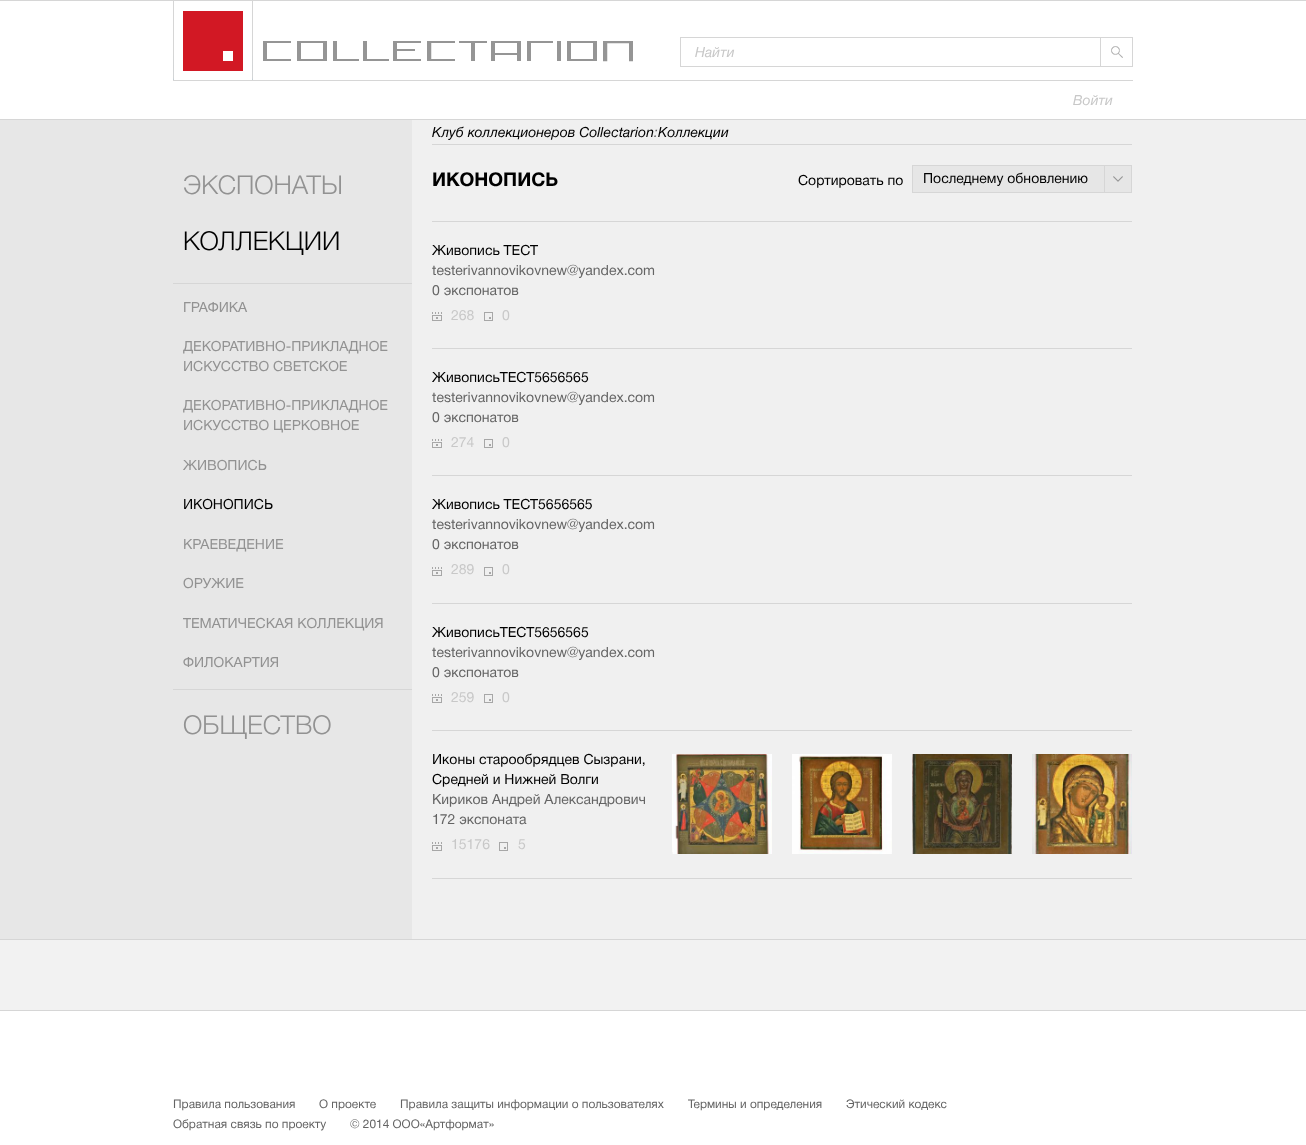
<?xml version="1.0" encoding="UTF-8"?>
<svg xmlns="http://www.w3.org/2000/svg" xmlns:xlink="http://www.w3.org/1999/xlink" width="1306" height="1145">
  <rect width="100%" height="100%" fill="#ffffff" />
  <rect width="1306" height="1" fill="#d6d6d6" />
  <rect y="119" width="1306" height="1" fill="#d6d6d6" />
  <image x="173" y="1" width="460" height="79" xlink:href="image1.png" />
  <rect x="680" y="37" width="420" height="1" fill="#d6d6d6" />
  <rect x="680" y="66" width="420" height="1" fill="#d6d6d6" />
  <rect x="680" y="37" width="1" height="30" fill="#d6d6d6" />
  <image x="1111" y="46" width="12" height="12" xlink:href="image2.png" />
  <rect x="1100.5" y="37.5" width="32" height="29" fill="none" stroke="#d6d6d6" />
  <rect x="173" y="80" width="960" height="1" fill="#d6d6d6" />
  <rect y="120" width="412" height="819" fill="#e7e7e7" />
  <rect x="412" y="120" width="894" height="819" fill="#f0f0f0" />
  <rect y="939" width="1306" height="1" fill="#d6d6d6" />
  <rect x="173" y="283" width="239" height="1" fill="#d6d6d6" />
  <rect x="173" y="689" width="239" height="1" fill="#d6d6d6" />
  <rect x="432" y="144" width="700" height="1" fill="#d6d6d6" />
  <rect x="432" y="221" width="700" height="1" fill="#d6d6d6" />
  <rect x="913" y="166" width="191" height="26" fill="#e6e6e6" />
  <rect x="912.5" y="165.5" width="219" height="27" fill="none" stroke="#d6d6d6" />
  <rect x="1104.5" y="165.5" width="27" height="27" fill="#e6e6e6" stroke="#d6d6d6" />
  <image x="1113" y="176" width="10" height="6" xlink:href="image3.png" />
  <rect x="432" y="348" width="700" height="1" fill="#d6d6d6" />
  <image x="432" y="312" width="10" height="9" xlink:href="image4.png" />
  <image x="484" y="312" width="9" height="9" xlink:href="image5.png" />
  <rect x="432" y="475" width="700" height="1" fill="#d6d6d6" />
  <image x="432" y="439" width="10" height="9" xlink:href="image4.png" />
  <image x="484" y="439" width="9" height="9" xlink:href="image5.png" />
  <rect x="432" y="603" width="700" height="1" fill="#d6d6d6" />
  <image x="432" y="567" width="10" height="9" xlink:href="image4.png" />
  <image x="484" y="567" width="9" height="9" xlink:href="image5.png" />
  <rect x="432" y="730" width="700" height="1" fill="#d6d6d6" />
  <image x="432" y="694" width="10" height="9" xlink:href="image4.png" />
  <image x="484" y="694" width="9" height="9" xlink:href="image5.png" />
  <rect x="432" y="878" width="700" height="1" fill="#d6d6d6" />
  <image x="432" y="842" width="10" height="9" xlink:href="image4.png" />
  <image x="499" y="842" width="9" height="9" xlink:href="image5.png" />
  <image x="672" y="754" width="100" height="100" xlink:href="image6.png" />
  <image x="792" y="754" width="100" height="100" xlink:href="image7.png" />
  <image x="912" y="754" width="100" height="100" xlink:href="image8.png" />
  <image x="1032" y="754" width="100" height="100" xlink:href="image9.png" />
  <rect y="940" width="1306" height="70" fill="#f2f2f2" />
  <rect y="1010" width="1306" height="1" fill="#d6d6d6" />
  <text x="695" y="57" style="font-family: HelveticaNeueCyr; font-size: 14px; font-weight: 500; font-style: italic; fill: #c8c8c8">Найти</text>
  <text x="1073" y="105" style="font-family: HelveticaNeueCyr; font-size: 14px; font-weight: 500; font-style: italic; fill: #c8c8c8">Войти</text>
  <text x="183" y="194" style="font-family: HelveticaNeueCyr; font-size: 26px; font-weight: 300; fill: #929292">ЭКСПОНАТЫ</text>
  <text x="183" y="250" style="font-family: HelveticaNeueCyr; font-size: 26px; font-weight: 300; fill: #000000">КОЛЛЕКЦИИ</text>
  <text x="183" y="312" style="font-family: HelveticaNeueCyr; font-size: 14px; fill: #929292">ГРАФИКА</text>
  <text x="183" y="351" style="font-family: HelveticaNeueCyr; font-size: 14px; fill: #929292">ДЕКОРАТИВНО-ПРИКЛАДНОЕ</text>
  <text x="183" y="371" style="font-family: HelveticaNeueCyr; font-size: 14px; fill: #929292">ИСКУССТВО СВЕТСКОЕ</text>
  <text x="183" y="410" style="font-family: HelveticaNeueCyr; font-size: 14px; fill: #929292">ДЕКОРАТИВНО-ПРИКЛАДНОЕ</text>
  <text x="183" y="430" style="font-family: HelveticaNeueCyr; font-size: 14px; fill: #929292">ИСКУССТВО ЦЕРКОВНОЕ</text>
  <text x="183" y="470" style="font-family: HelveticaNeueCyr; font-size: 14px; fill: #929292">ЖИВОПИСЬ</text>
  <text x="183" y="509" style="font-family: HelveticaNeueCyr; font-size: 14px; fill: #000000">ИКОНОПИСЬ</text>
  <text x="183" y="549" style="font-family: HelveticaNeueCyr; font-size: 14px; fill: #929292">КРАЕВЕДЕНИЕ</text>
  <text x="183" y="588" style="font-family: HelveticaNeueCyr; font-size: 14px; fill: #929292">ОРУЖИЕ</text>
  <text x="183" y="628" style="font-family: HelveticaNeueCyr; font-size: 14px; fill: #929292">ТЕМАТИЧЕСКАЯ КОЛЛЕКЦИЯ</text>
  <text x="183" y="667" style="font-family: HelveticaNeueCyr; font-size: 14px; fill: #929292">ФИЛОКАРТИЯ</text>
  <text x="183" y="734" style="font-family: HelveticaNeueCyr; font-size: 26px; font-weight: 300; fill: #929292">ОБЩЕСТВО</text>
  <text x="432" y="137" style="font-family: HelveticaNeueCyr; font-size: 14px; font-weight: 500; font-style: italic; fill: #000000">Клуб коллекционеров Collectarion</text>
  <text x="654" y="137" style="font-family: HelveticaNeueCyr; font-size: 14px; font-weight: 500; font-style: italic; fill: #646464">:</text>
  <text x="658" y="137" style="font-family: HelveticaNeueCyr; font-size: 14px; font-weight: 500; font-style: italic; fill: #000000">Коллекции</text>
  <text x="432" y="186" style="font-family: HelveticaNeueCyr; font-size: 19px; font-weight: bold; fill: #000000">ИКОНОПИСЬ</text>
  <text x="798" y="185" style="font-family: HelveticaNeueCyr; font-size: 14px; fill: #000000">Сортировать по</text>
  <text x="923" y="183" style="font-family: HelveticaNeueCyr; font-size: 14px; fill: #000000">Последнему обновлению</text>
  <text x="432" y="255" style="font-family: HelveticaNeueCyr; font-size: 14px; fill: #000000">Живопись ТЕСТ</text>
  <text x="432" y="275" style="font-family: HelveticaNeueCyr; font-size: 14px; fill: #646464">testerivannovikovnew@yandex.com</text>
  <text x="432" y="295" style="font-family: HelveticaNeueCyr; font-size: 14px; fill: #646464">0 экспонатов</text>
  <text x="451" y="320" style="font-family: HelveticaNeueCyr; font-size: 14px; fill: #c8c8c8">268</text>
  <text x="502" y="320" style="font-family: HelveticaNeueCyr; font-size: 14px; fill: #c8c8c8">0</text>
  <text x="432" y="382" style="font-family: HelveticaNeueCyr; font-size: 14px; fill: #000000">ЖивописьТЕСТ5656565</text>
  <text x="432" y="402" style="font-family: HelveticaNeueCyr; font-size: 14px; fill: #646464">testerivannovikovnew@yandex.com</text>
  <text x="432" y="422" style="font-family: HelveticaNeueCyr; font-size: 14px; fill: #646464">0 экспонатов</text>
  <text x="451" y="447" style="font-family: HelveticaNeueCyr; font-size: 14px; fill: #c8c8c8">274</text>
  <text x="502" y="447" style="font-family: HelveticaNeueCyr; font-size: 14px; fill: #c8c8c8">0</text>
  <text x="432" y="509" style="font-family: HelveticaNeueCyr; font-size: 14px; fill: #000000">Живопись ТЕСТ5656565</text>
  <text x="432" y="529" style="font-family: HelveticaNeueCyr; font-size: 14px; fill: #646464">testerivannovikovnew@yandex.com</text>
  <text x="432" y="549" style="font-family: HelveticaNeueCyr; font-size: 14px; fill: #646464">0 экспонатов</text>
  <text x="451" y="574" style="font-family: HelveticaNeueCyr; font-size: 14px; fill: #c8c8c8">289</text>
  <text x="502" y="574" style="font-family: HelveticaNeueCyr; font-size: 14px; fill: #c8c8c8">0</text>
  <text x="432" y="637" style="font-family: HelveticaNeueCyr; font-size: 14px; fill: #000000">ЖивописьТЕСТ5656565</text>
  <text x="432" y="657" style="font-family: HelveticaNeueCyr; font-size: 14px; fill: #646464">testerivannovikovnew@yandex.com</text>
  <text x="432" y="677" style="font-family: HelveticaNeueCyr; font-size: 14px; fill: #646464">0 экспонатов</text>
  <text x="451" y="702" style="font-family: HelveticaNeueCyr; font-size: 14px; fill: #c8c8c8">259</text>
  <text x="502" y="702" style="font-family: HelveticaNeueCyr; font-size: 14px; fill: #c8c8c8">0</text>
  <text x="432" y="764" style="font-family: HelveticaNeueCyr; font-size: 14px; fill: #000000">Иконы старообрядцев Сызрани,</text>
  <text x="432" y="784" style="font-family: HelveticaNeueCyr; font-size: 14px; fill: #000000">Средней и Нижней Волги</text>
  <text x="432" y="804" style="font-family: HelveticaNeueCyr; font-size: 14px; fill: #646464">Кириков Андрей Александрович</text>
  <text x="432" y="824" style="font-family: HelveticaNeueCyr; font-size: 14px; fill: #646464">172 экспоната</text>
  <text x="451" y="849" style="font-family: HelveticaNeueCyr; font-size: 14px; fill: #c8c8c8">15176</text>
  <text x="518" y="849" style="font-family: HelveticaNeueCyr; font-size: 14px; fill: #c8c8c8">5</text>
  <text x="173" y="1108" style="font-family: HelveticaNeueCyr; font-size: 11.9px; fill: #646464">Правила пользования</text>
  <text x="319" y="1108" style="font-family: HelveticaNeueCyr; font-size: 11.9px; fill: #646464">О проекте</text>
  <text x="400" y="1108" style="font-family: HelveticaNeueCyr; font-size: 11.9px; fill: #646464">Правила защиты информации о пользователях</text>
  <text x="688" y="1108" style="font-family: HelveticaNeueCyr; font-size: 11.9px; fill: #646464">Термины и определения</text>
  <text x="846" y="1108" style="font-family: HelveticaNeueCyr; font-size: 11.9px; fill: #646464">Этический кодекс</text>
  <text x="173" y="1128" style="font-family: HelveticaNeueCyr; font-size: 11.9px; fill: #646464">Обратная связь по проекту</text>
  <text x="350" y="1128" style="font-family: HelveticaNeueCyr; font-size: 11.9px; fill: #646464">© 2014 ООО«Артформат»</text>
</svg>
